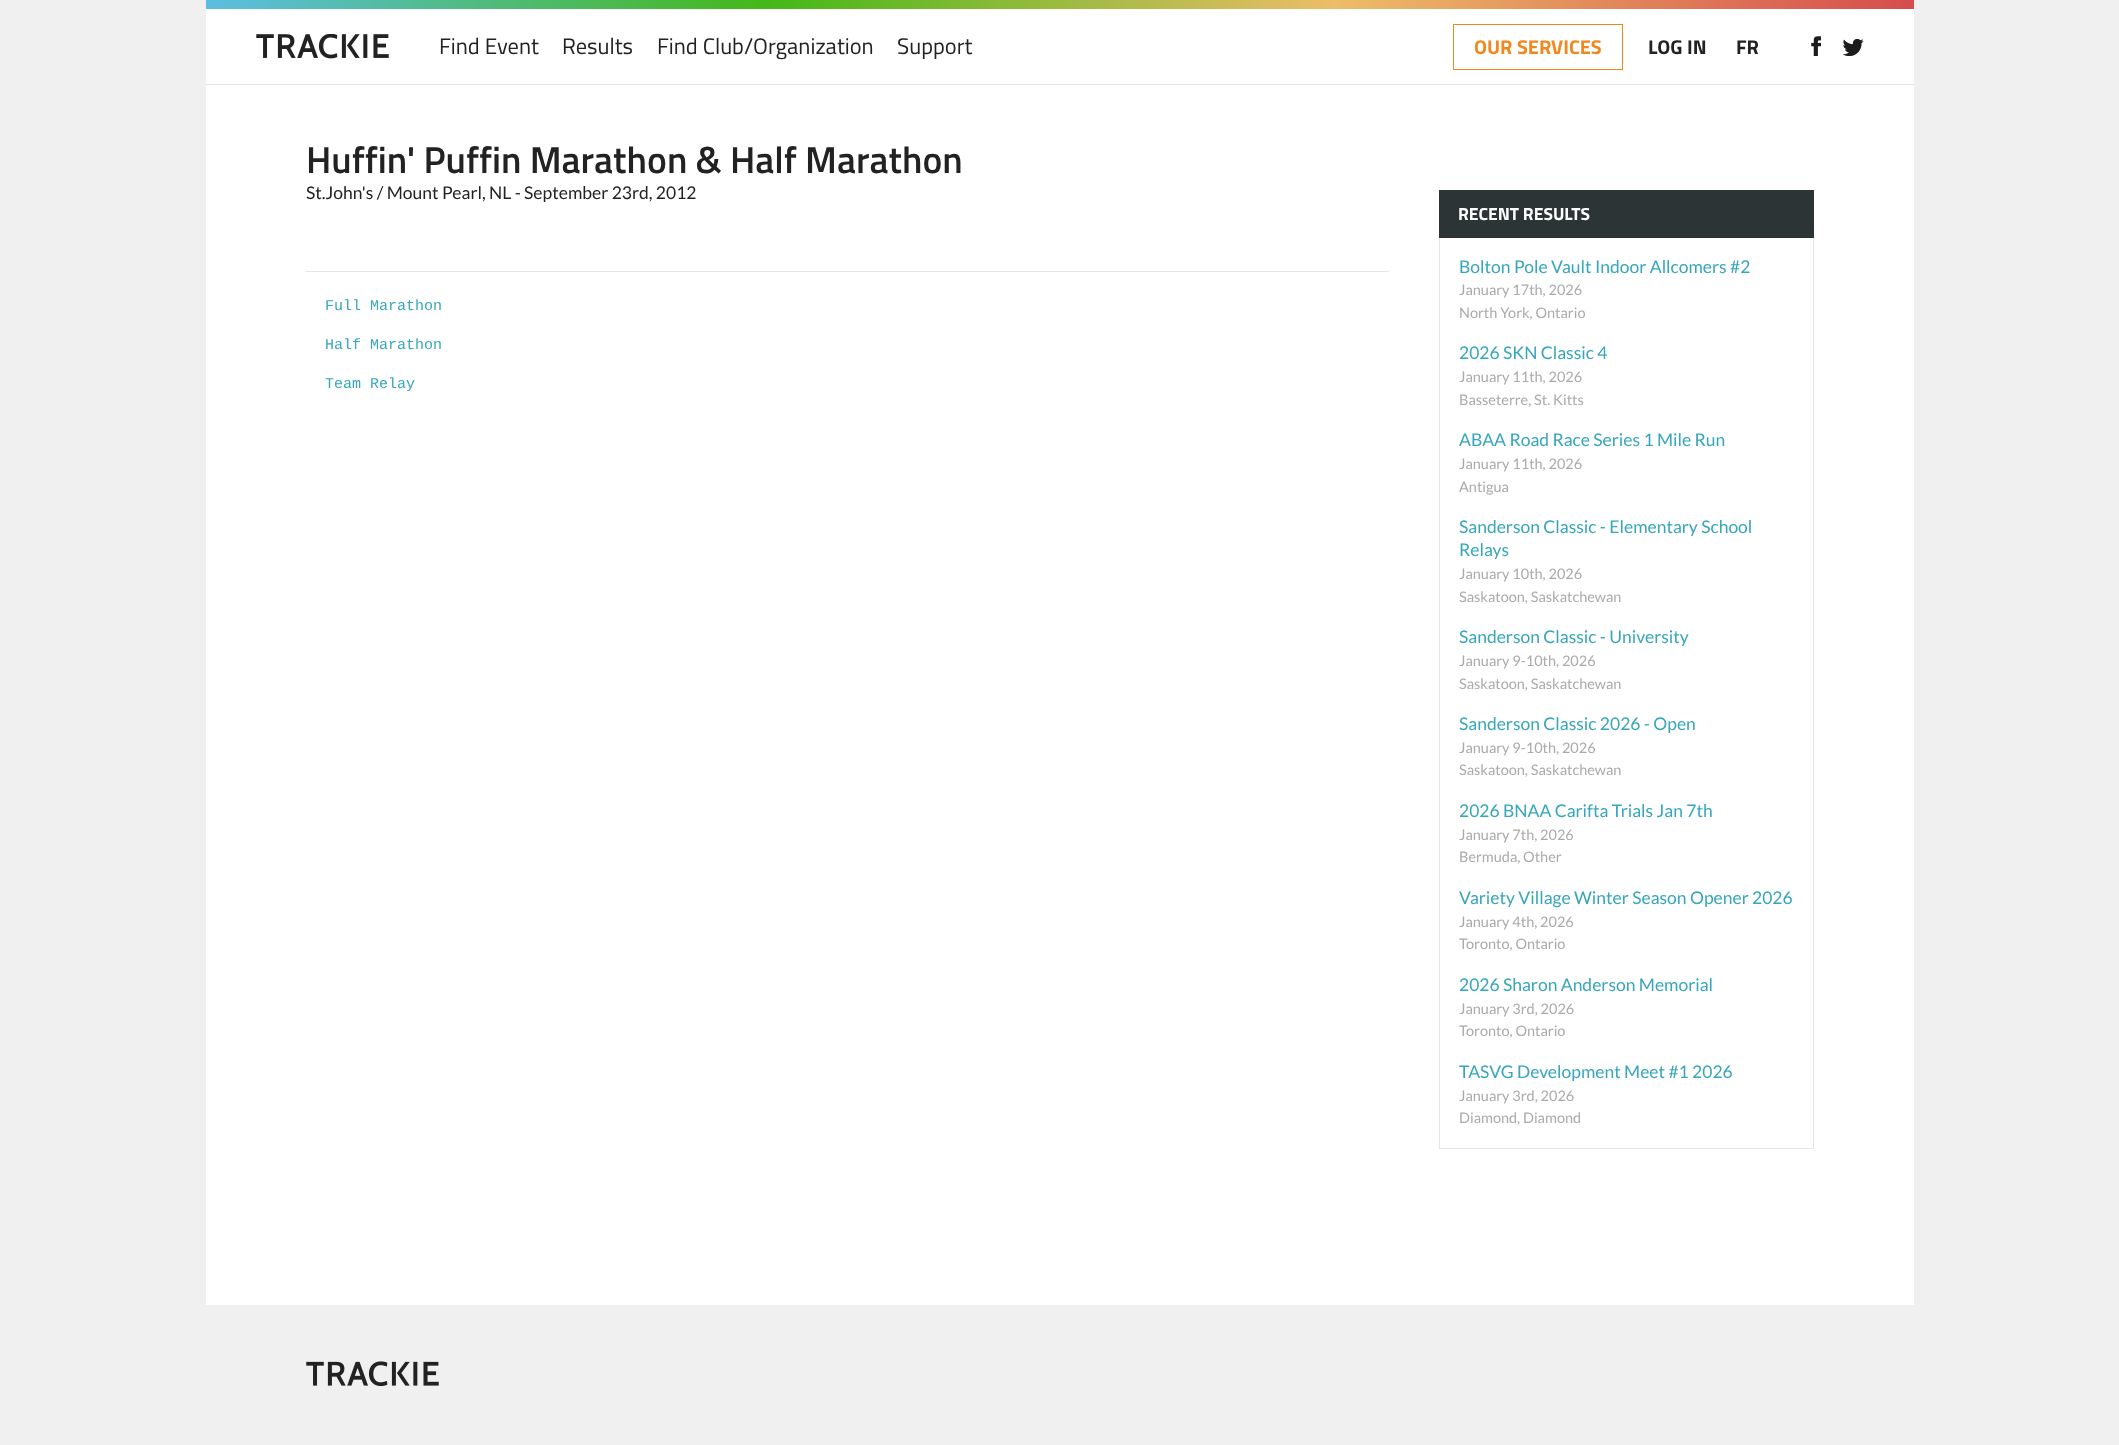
<?xml version="1.0" encoding="UTF-8"?>
<svg xmlns="http://www.w3.org/2000/svg" xmlns:xlink="http://www.w3.org/1999/xlink" width="2119" height="1445">
  <defs>
    <linearGradient id="g1" gradientUnits="userSpaceOnUse" x1="206" y1="4.4" x2="1914" y2="4.4"><stop offset="0" stop-color="#5bbee2" /><stop offset="0.33" stop-color="#44b817" /><stop offset="0.66" stop-color="#edbd68" /><stop offset="1" stop-color="#d54d4d" /></linearGradient>
  </defs>
  <rect width="100%" height="100%" fill="#f0f0f0" />
  <rect x="206" y="9" width="1708" height="1296" fill="#ffffff" />
  <rect x="206" y="84" width="1708" height="1" fill="#e4e4e4" />
  <rect x="206" width="1708" height="9" fill="url(#g1)" />
  <image x="256" y="34" width="133" height="25" xlink:href="image1.png" />
  <rect x="1453.5" y="24.5" width="169" height="45" fill="none" stroke="#f2881d" />
  <image x="1811" y="36" width="10" height="20" xlink:href="image2.png" />
  <image x="1843" y="39" width="21" height="17" xlink:href="image3.png" />
  <rect x="306" y="271" width="1083" height="1" fill="#e4e4e4" />
  <rect x="1813" y="238" width="1" height="911" fill="#e4e4e4" />
  <rect x="1439" y="1148" width="375" height="1" fill="#e4e4e4" />
  <rect x="1439" y="238" width="1" height="911" fill="#e4e4e4" />
  <rect x="1439" y="190" width="375" height="48" fill="#2c3435" />
  <image x="306" y="1361" width="133" height="25" xlink:href="image4.png" />
  <text x="439" y="54" style="font-family: Titillium Web; font-size: 22.5px; fill: #222222">Find Event</text>
  <text x="562" y="54" style="font-family: Titillium Web; font-size: 22.5px; fill: #222222">Results</text>
  <text x="657" y="54" style="font-family: Titillium Web; font-size: 22.5px; fill: #222222">Find Club/Organization</text>
  <text x="897" y="54" style="font-family: Titillium Web; font-size: 22.5px; fill: #222222">Support</text>
  <text x="1474" y="54" style="font-family: Titillium Web; font-size: 20px; font-weight: bold; fill: #f2881d">OUR SERVICES</text>
  <text x="1648" y="54" style="font-family: Titillium Web; font-size: 20px; font-weight: bold; fill: #222222">LOG IN</text>
  <text x="1736" y="54" style="font-family: Titillium Web; font-size: 20px; font-weight: bold; fill: #222222">FR</text>
  <text x="306" y="173" style="font-family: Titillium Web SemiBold; font-size: 37.5px; font-weight: 600; fill: #222222">Huffin' Puffin Marathon &amp; Half Marathon</text>
  <text x="306" y="199" style="font-family: Lato; font-size: 17.5px; fill: #222222">St.John's / Mount Pearl, NL - September 23rd, 2012</text>
  <text x="325" y="310" style="font-family: Liberation Mono; font-size: 15px; fill: #36a6bc">Full Marathon</text>
  <text x="325" y="349" style="font-family: Liberation Mono; font-size: 15px; fill: #36a6bc">Half Marathon</text>
  <text x="325" y="388" style="font-family: Liberation Mono; font-size: 15px; fill: #36a6bc">Team Relay</text>
  <text x="1458" y="220" style="font-family: Titillium Web; font-size: 17.5px; font-weight: bold; fill: #ffffff">RECENT RESULTS</text>
  <text x="1459" y="273" style="font-family: Lato; font-size: 17.5px; fill: #36a6bc">Bolton Pole Vault Indoor Allcomers #2</text>
  <text x="1459" y="295" style="font-family: Lato; font-size: 14.5px; fill: #aaaaaa">January 17th, 2026</text>
  <text x="1459" y="318" style="font-family: Lato; font-size: 14.5px; fill: #aaaaaa">North York, Ontario</text>
  <text x="1459" y="359" style="font-family: Lato; font-size: 17.5px; fill: #36a6bc">2026 SKN Classic 4</text>
  <text x="1459" y="382" style="font-family: Lato; font-size: 14.5px; fill: #aaaaaa">January 11th, 2026</text>
  <text x="1459" y="405" style="font-family: Lato; font-size: 14.5px; fill: #aaaaaa">Basseterre, St. Kitts</text>
  <text x="1459" y="446" style="font-family: Lato; font-size: 17.5px; fill: #36a6bc">ABAA Road Race Series 1 Mile Run</text>
  <text x="1459" y="469" style="font-family: Lato; font-size: 14.5px; fill: #aaaaaa">January 11th, 2026</text>
  <text x="1459" y="492" style="font-family: Lato; font-size: 14.5px; fill: #aaaaaa">Antigua</text>
  <text x="1459" y="533" style="font-family: Lato; font-size: 17.5px; fill: #36a6bc">Sanderson Classic - Elementary School</text>
  <text x="1459" y="556" style="font-family: Lato; font-size: 17.5px; fill: #36a6bc">Relays</text>
  <text x="1459" y="579" style="font-family: Lato; font-size: 14.5px; fill: #aaaaaa">January 10th, 2026</text>
  <text x="1459" y="602" style="font-family: Lato; font-size: 14.5px; fill: #aaaaaa">Saskatoon, Saskatchewan</text>
  <text x="1459" y="643" style="font-family: Lato; font-size: 17.5px; fill: #36a6bc">Sanderson Classic - University</text>
  <text x="1459" y="666" style="font-family: Lato; font-size: 14.5px; fill: #aaaaaa">January 9-10th, 2026</text>
  <text x="1459" y="689" style="font-family: Lato; font-size: 14.5px; fill: #aaaaaa">Saskatoon, Saskatchewan</text>
  <text x="1459" y="730" style="font-family: Lato; font-size: 17.5px; fill: #36a6bc">Sanderson Classic 2026 - Open</text>
  <text x="1459" y="753" style="font-family: Lato; font-size: 14.5px; fill: #aaaaaa">January 9-10th, 2026</text>
  <text x="1459" y="775" style="font-family: Lato; font-size: 14.5px; fill: #aaaaaa">Saskatoon, Saskatchewan</text>
  <text x="1459" y="817" style="font-family: Lato; font-size: 17.5px; fill: #36a6bc">2026 BNAA Carifta Trials Jan 7th</text>
  <text x="1459" y="840" style="font-family: Lato; font-size: 14.5px; fill: #aaaaaa">January 7th, 2026</text>
  <text x="1459" y="862" style="font-family: Lato; font-size: 14.5px; fill: #aaaaaa">Bermuda, Other</text>
  <text x="1459" y="904" style="font-family: Lato; font-size: 17.5px; fill: #36a6bc">Variety Village Winter Season Opener 2026</text>
  <text x="1459" y="927" style="font-family: Lato; font-size: 14.5px; fill: #aaaaaa">January 4th, 2026</text>
  <text x="1459" y="949" style="font-family: Lato; font-size: 14.5px; fill: #aaaaaa">Toronto, Ontario</text>
  <text x="1459" y="991" style="font-family: Lato; font-size: 17.5px; fill: #36a6bc">2026 Sharon Anderson Memorial</text>
  <text x="1459" y="1014" style="font-family: Lato; font-size: 14.5px; fill: #aaaaaa">January 3rd, 2026</text>
  <text x="1459" y="1036" style="font-family: Lato; font-size: 14.5px; fill: #aaaaaa">Toronto, Ontario</text>
  <text x="1459" y="1078" style="font-family: Lato; font-size: 17.5px; fill: #36a6bc">TASVG Development Meet #1 2026</text>
  <text x="1459" y="1101" style="font-family: Lato; font-size: 14.5px; fill: #aaaaaa">January 3rd, 2026</text>
  <text x="1459" y="1123" style="font-family: Lato; font-size: 14.5px; fill: #aaaaaa">Diamond, Diamond</text>
</svg>
